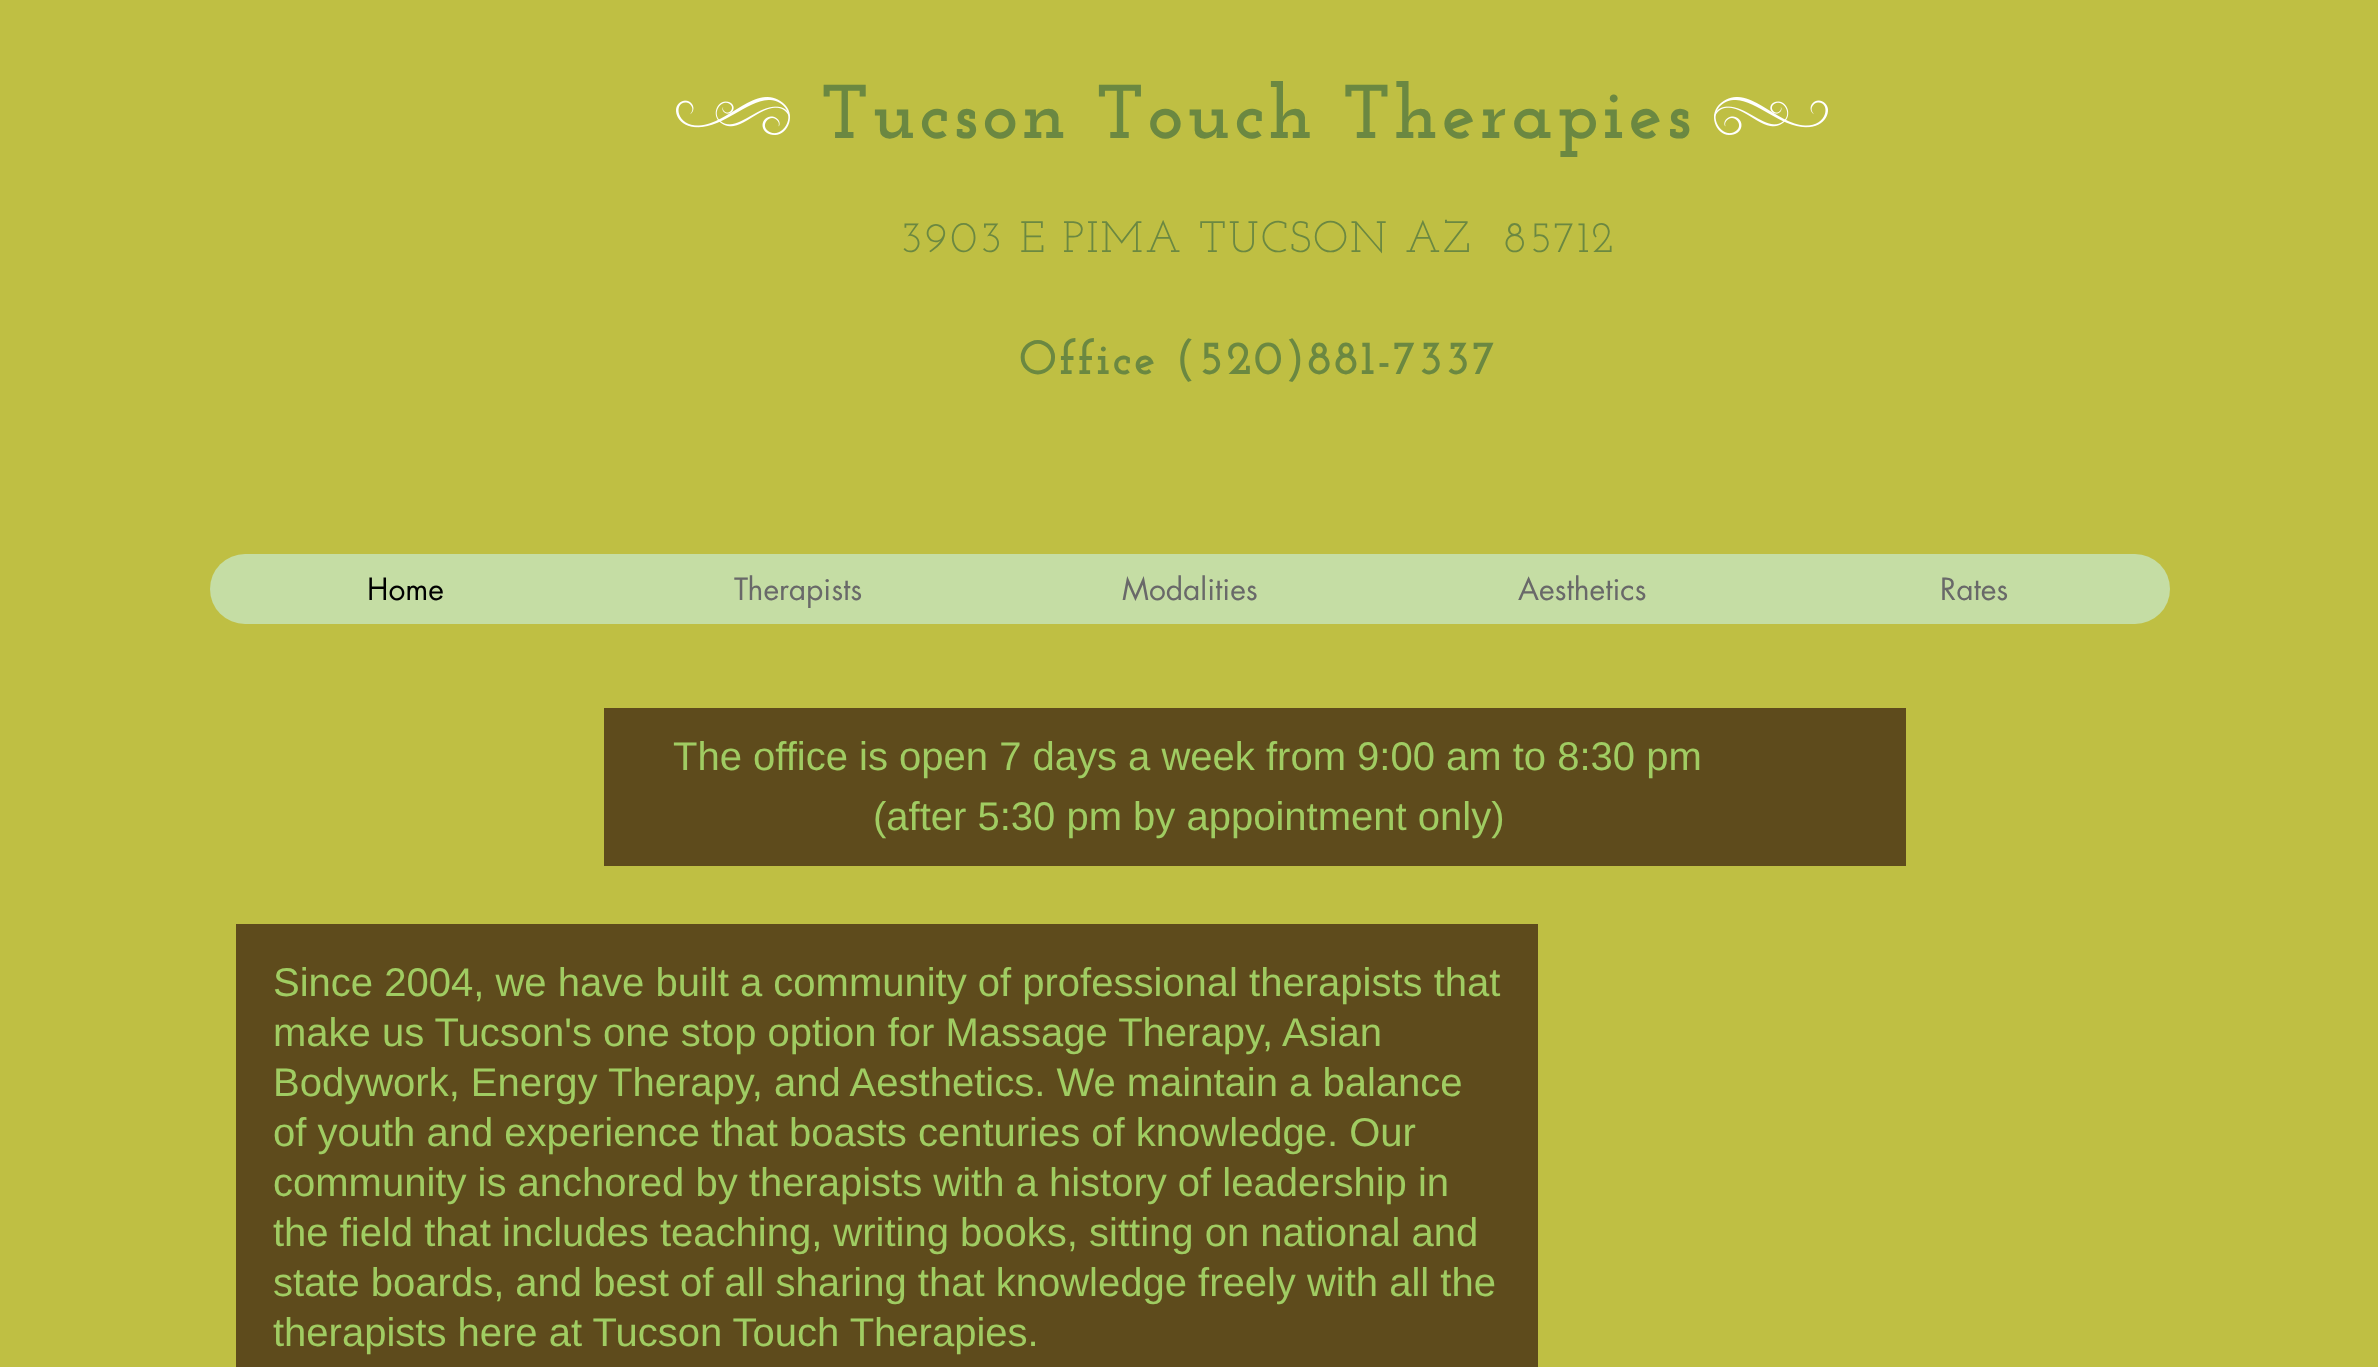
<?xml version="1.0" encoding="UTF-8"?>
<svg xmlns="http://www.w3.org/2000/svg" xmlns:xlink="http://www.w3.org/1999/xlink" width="2378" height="1367">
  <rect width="100%" height="100%" fill="#bfbf43" />
  <image x="676" y="97" width="114" height="38" xlink:href="image1.png" />
  <image x="1714" y="97" width="114" height="38" xlink:href="image2.png" />
  <rect x="210" y="554" width="1960" height="70" rx="35" fill="#c5dda4" />
  <rect x="604" y="708" width="1302" height="158" fill="#5e4b1c" />
  <rect x="236" y="924" width="1302" height="443" fill="#5e4b1c" />
  <text x="821" y="138" style="font-family: Josefin Slab; font-size: 76px; font-weight: bold; letter-spacing: 3.8px; fill: #6b8841">Tucson Touch Therapies</text>
  <text x="900" y="252" style="font-family: Josefin Slab; font-size: 44px; letter-spacing: 2.2px; fill: #6b8841" xml:space="preserve">3903 E PIMA TUCSON AZ  85712</text>
  <text x="1019" y="374" style="font-family: Josefin Slab; font-size: 48px; font-weight: bold; letter-spacing: 2.4px; fill: #6b8841">Office (520)881-7337</text>
  <text x="367" y="600" style="font-family: futura; font-size: 30px; fill: #000000">Home</text>
  <text x="734" y="600" style="font-family: futura; font-size: 30px; fill: #696969">Therapists</text>
  <text x="1122" y="600" style="font-family: futura; font-size: 30px; fill: #696969">Modalities</text>
  <text x="1518" y="600" style="font-family: futura; font-size: 30px; fill: #696969">Aesthetics</text>
  <text x="1940" y="600" style="font-family: futura; font-size: 30px; fill: #696969">Rates</text>
  <text x="673" y="770" style="font-family: Liberation Sans; font-size: 40px; fill: #a0cc62">The office is open 7 days a week from 9:00 am to 8:30 pm</text>
  <text x="873" y="830" style="font-family: Liberation Sans; font-size: 40px; fill: #a0cc62">(after 5:30 pm by appointment only)</text>
  <text x="273" y="996" style="font-family: Liberation Sans; font-size: 40px; fill: #a0cc62">Since 2004, we have built a community of professional therapists that</text>
  <text x="273" y="1046" style="font-family: Liberation Sans; font-size: 40px; fill: #a0cc62">make us Tucson's one stop option for Massage Therapy, Asian</text>
  <text x="273" y="1096" style="font-family: Liberation Sans; font-size: 40px; fill: #a0cc62">Bodywork, Energy Therapy, and Aesthetics. We maintain a balance</text>
  <text x="273" y="1146" style="font-family: Liberation Sans; font-size: 40px; fill: #a0cc62">of youth and experience that boasts centuries of knowledge. Our</text>
  <text x="273" y="1196" style="font-family: Liberation Sans; font-size: 40px; fill: #a0cc62">community is anchored by therapists with a history of leadership in</text>
  <text x="273" y="1246" style="font-family: Liberation Sans; font-size: 40px; fill: #a0cc62">the field that includes teaching, writing books, sitting on national and</text>
  <text x="273" y="1296" style="font-family: Liberation Sans; font-size: 40px; fill: #a0cc62">state boards, and best of all sharing that knowledge freely with all the</text>
  <text x="273" y="1346" style="font-family: Liberation Sans; font-size: 40px; fill: #a0cc62">therapists here at Tucson Touch Therapies.</text>
</svg>
